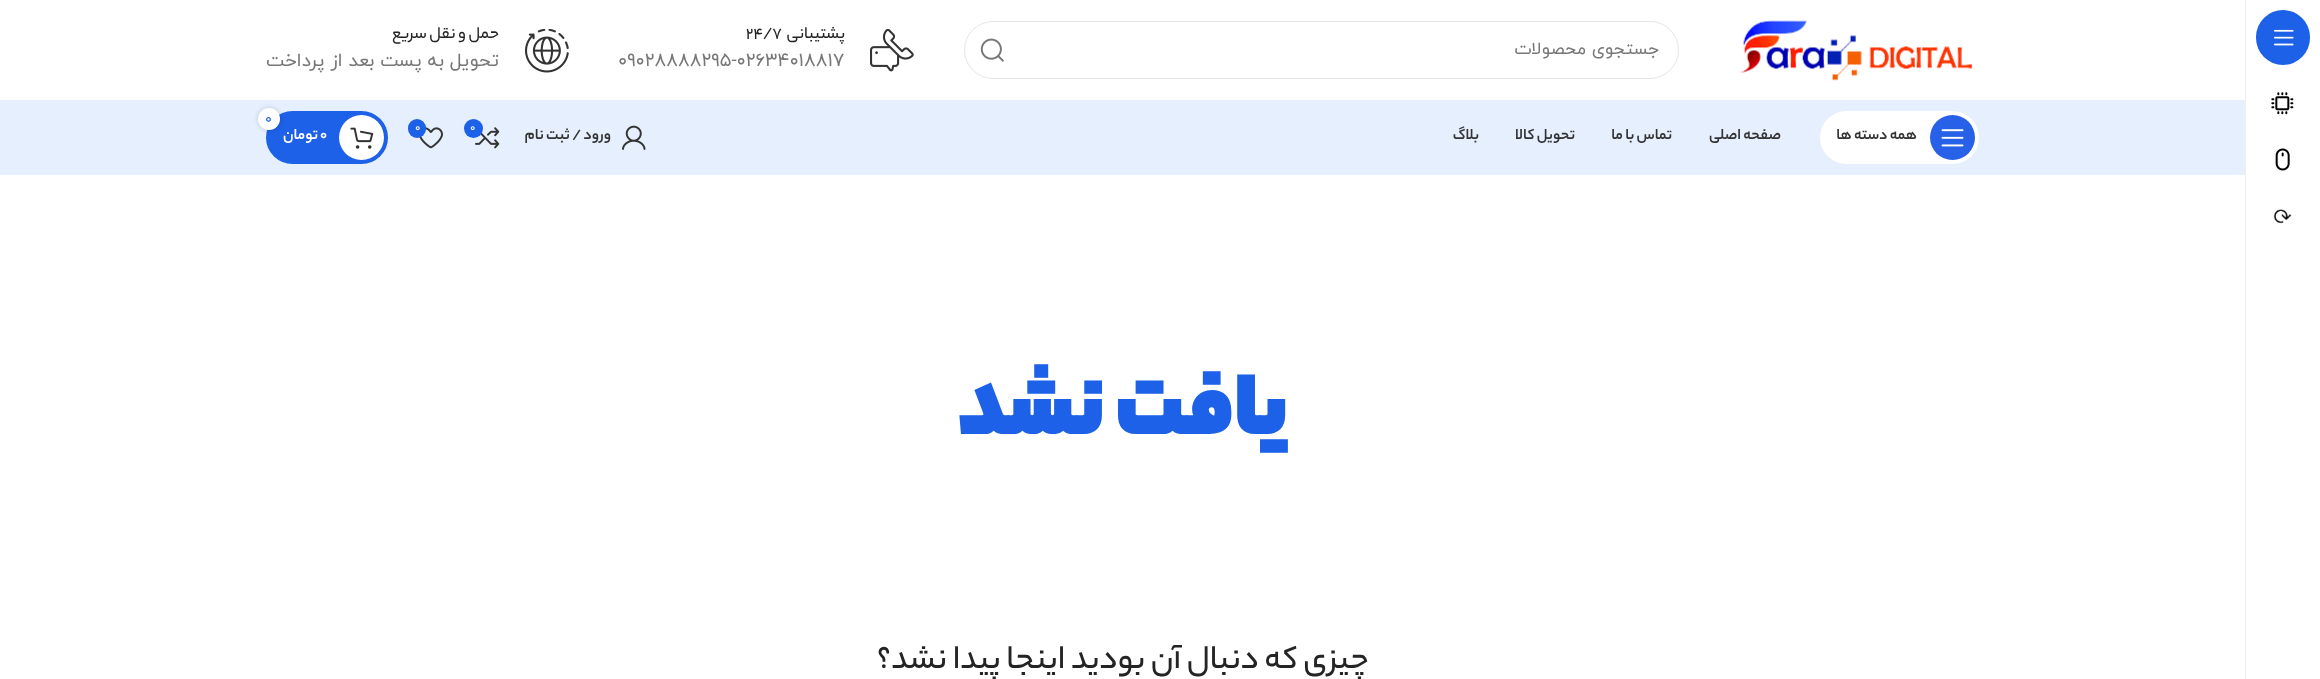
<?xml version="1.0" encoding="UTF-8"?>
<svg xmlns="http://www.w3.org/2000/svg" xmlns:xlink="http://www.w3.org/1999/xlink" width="2320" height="679">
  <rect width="100%" height="100%" fill="#ffffff" />
  <rect x="2245" width="1" height="679" fill="#efefef" />
  <rect x="2256" y="10" width="54" height="55" rx="27" fill="#1c61e7" />
  <image x="2273" y="29" width="21" height="17" xlink:href="image1.png" />
  <image x="2271" y="92" width="23" height="23" xlink:href="image2.png" />
  <image x="2275" y="148" width="15" height="23" xlink:href="image3.png" />
  <image x="2273" y="209" width="19" height="15" xlink:href="image4.png" />
  <image x="1740" y="20" width="233" height="61" xlink:href="image5.png" />
  <rect x="964.5" y="21.5" width="714" height="57" rx="28.5" fill="none" stroke="#e6e6e6" />
  <image x="980" y="38" width="24" height="24" xlink:href="image6.png" />
  <image x="870" y="29" width="44" height="43" xlink:href="image7.png" />
  <image x="525" y="29" width="44" height="44" xlink:href="image8.png" />
  <rect y="100" width="2245" height="75" fill="#e6effd" />
  <rect x="1820" y="111" width="159" height="53" rx="26.5" fill="#ffffff" />
  <circle cx="1952.5" cy="137.5" r="22.5" fill="#2761e7" />
  <image x="1941" y="129" width="23" height="18" xlink:href="image9.png" />
  <image x="622" y="125" width="24" height="25" xlink:href="image10.png" />
  <image x="475" y="127" width="25" height="22" xlink:href="image11.png" />
  <circle cx="473.5" cy="128.5" r="9.5" fill="#1c61e7" />
  <image x="419" y="127" width="24" height="22" xlink:href="image12.png" />
  <rect x="408" y="119" width="18" height="19" rx="9" fill="#1c61e7" />
  <rect x="266" y="111" width="122" height="53" rx="26.5" fill="#1c61e7" />
  <circle cx="361.5" cy="137.5" r="22.5" fill="#ffffff" />
  <rect x="258" y="108" width="22" height="22" rx="11" fill="#000000" fill-opacity="0.17" filter="blur(2.5px)" />
  <circle cx="269" cy="119" r="11" fill="#ffffff" />
  <image x="350" y="127" width="24" height="22" xlink:href="image13.png" />
  <text x="1659" y="54" style="font-family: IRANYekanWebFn; font-size: 17.5px; direction: rtl; fill: #777777">جستجوی محصولات</text>
  <text x="845" y="38" style="font-family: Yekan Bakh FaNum; font-size: 17.5px; font-weight: 500; direction: rtl; fill: #242424">پشتیبانی</text>
  <text x="746" y="38" style="font-family: Yekan Bakh FaNum; font-size: 17.5px; font-weight: 500; fill: #242424">24/7</text>
  <text x="618" y="66" style="font-family: IRANYekanWebFn; font-size: 18.75px; fill: #777777">09028888295-02634018817</text>
  <text x="499" y="38" style="font-family: Yekan Bakh FaNum; font-size: 17.5px; font-weight: 500; direction: rtl; fill: #242424">حمل و نقل سریع</text>
  <text x="499" y="66" style="font-family: IRANYekanWebFn; font-size: 18.75px; direction: rtl; fill: #777777">تحویل به پست بعد از پرداخت</text>
  <text x="1917" y="139" style="font-family: Yekan Bakh FaNum; font-size: 16.25px; font-weight: bold; direction: rtl; fill: #333333">همه دسته ها</text>
  <text x="1781" y="139" style="font-family: Yekan Bakh FaNum; font-size: 16.25px; font-weight: bold; direction: rtl; fill: #333333">صفحه اصلی</text>
  <text x="1672" y="139" style="font-family: Yekan Bakh FaNum; font-size: 16.25px; font-weight: bold; direction: rtl; fill: #333333">تماس با ما</text>
  <text x="1575" y="139" style="font-family: Yekan Bakh FaNum; font-size: 16.25px; font-weight: bold; direction: rtl; fill: #333333">تحویل کالا</text>
  <text x="1479" y="139" style="font-family: Yekan Bakh FaNum; font-size: 16.25px; font-weight: bold; direction: rtl; fill: #333333">بلاگ</text>
  <text x="611" y="139" style="font-family: Yekan Bakh FaNum; font-size: 16.25px; font-weight: bold; direction: rtl; fill: #333333">ورود / ثبت نام</text>
  <text x="470" y="131" style="font-family: IRANYekanWebFn; font-size: 11px; fill: #ffffff">0</text>
  <text x="415" y="131" style="font-family: IRANYekanWebFn; font-size: 11px; fill: #ffffff">0</text>
  <text x="265" y="123" style="font-family: IRANYekanWebFn; font-size: 14px; fill: #1c61e7">0</text>
  <text x="320" y="139" style="font-family: Yekan Bakh FaNum; font-size: 16.25px; font-weight: bold; fill: #ffffff">0</text>
  <text x="318" y="139" style="font-family: Yekan Bakh FaNum; font-size: 16.25px; font-weight: bold; direction: rtl; fill: #ffffff">تومان</text>
  <text x="1288" y="434" style="font-family: Yekan Bakh FaNum; font-size: 97.5px; font-weight: 900; direction: rtl; fill: #1c61e7">یافت نشد</text>
  <text x="1369" y="668" word-spacing="0.5" style="font-family: Yekan Bakh FaNum; font-size: 35px; font-weight: 500; direction: rtl; fill: #242424">چیزی که دنبال آن بودید اینجا پیدا نشد؟</text>
</svg>
